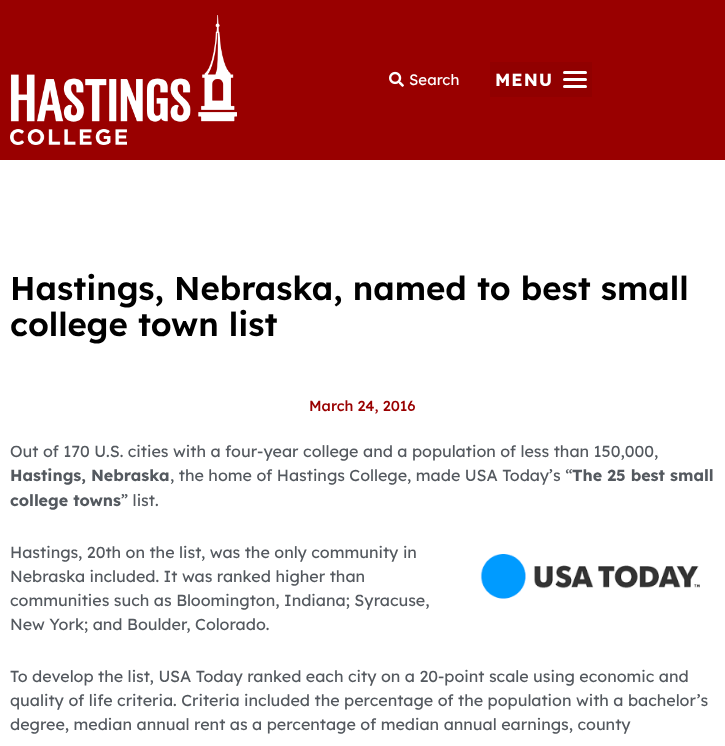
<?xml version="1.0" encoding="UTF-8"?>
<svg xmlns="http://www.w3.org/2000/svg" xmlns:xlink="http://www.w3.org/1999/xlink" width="725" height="746">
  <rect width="100%" height="100%" fill="#ffffff" />
  <rect width="725" height="160" fill="#990000" />
  <image x="10" y="15" width="227" height="130" xlink:href="image1.png" />
  <image x="389" y="71" width="15" height="16" xlink:href="image2.png" />
  <rect x="490" y="62" width="102" height="35" fill="#910000" />
  <rect x="563" y="78" width="24" height="3" rx="1.5" fill="#ffffff" />
  <rect x="563" y="71" width="24" height="3" rx="1.5" fill="#ffffff" />
  <rect x="563" y="85" width="24" height="3" rx="1.5" fill="#ffffff" />
  <image x="480" y="554" width="220" height="45" xlink:href="image3.png" />
  <text x="409" y="85" style="font-family: Lexend Deca; font-size: 15px; fill: #ffffff">Search</text>
  <text x="495" y="86" style="font-family: Lexend Deca; font-size: 17.5px; font-weight: bold; letter-spacing: 1px; fill: #ffffff">MENU</text>
  <text x="10" y="300" style="font-family: Lexend Deca; font-size: 33px; font-weight: 600; fill: #000000">Hastings, Nebraska, named to best small</text>
  <text x="10" y="336" style="font-family: Lexend Deca; font-size: 33px; font-weight: 600; fill: #000000">college town list</text>
  <text x="309" y="411" style="font-family: Lexend Deca; font-size: 14.5px; font-weight: 500; fill: #990000">March 24, 2016</text>
  <text x="10" y="457" style="font-family: Lexend Deca; font-size: 16.05px; fill: #54595f">Out of 170 U.S. cities with a four-year college and a population of less than 150,000,</text>
  <text x="10" y="481" style="font-family: Lexend Deca; font-size: 16.05px; font-weight: bold; fill: #54595f">Hastings, Nebraska</text>
  <text x="170" y="481" style="font-family: Lexend Deca; font-size: 16.05px; fill: #54595f">, the home of Hastings College, made USA Today’s “</text>
  <text x="572" y="481" style="font-family: Lexend Deca; font-size: 16.05px; font-weight: bold; fill: #54595f">The 25 best small</text>
  <text x="10" y="506" style="font-family: Lexend Deca; font-size: 16.05px; font-weight: bold; fill: #54595f">college towns</text>
  <text x="121" y="506" style="font-family: Lexend Deca; font-size: 16.05px; fill: #54595f">” list.</text>
  <text x="10" y="558" style="font-family: Lexend Deca; font-size: 16.05px; fill: #54595f">Hastings, 20th on the list, was the only community in</text>
  <text x="10" y="582" style="font-family: Lexend Deca; font-size: 16.05px; fill: #54595f">Nebraska included. It was ranked higher than</text>
  <text x="10" y="606" style="font-family: Lexend Deca; font-size: 16.05px; fill: #54595f">communities such as Bloomington, Indiana; Syracuse,</text>
  <text x="10" y="630" style="font-family: Lexend Deca; font-size: 16.05px; fill: #54595f">New York; and Boulder, Colorado.</text>
  <text x="10" y="682" style="font-family: Lexend Deca; font-size: 16.05px; fill: #54595f">To develop the list, USA Today ranked each city on a 20-point scale using economic and</text>
  <text x="10" y="706" style="font-family: Lexend Deca; font-size: 16.05px; fill: #54595f">quality of life criteria. Criteria included the percentage of the population with a bachelor’s</text>
  <text x="10" y="730" style="font-family: Lexend Deca; font-size: 16.05px; fill: #54595f">degree, median annual rent as a percentage of median annual earnings, county</text>
</svg>
